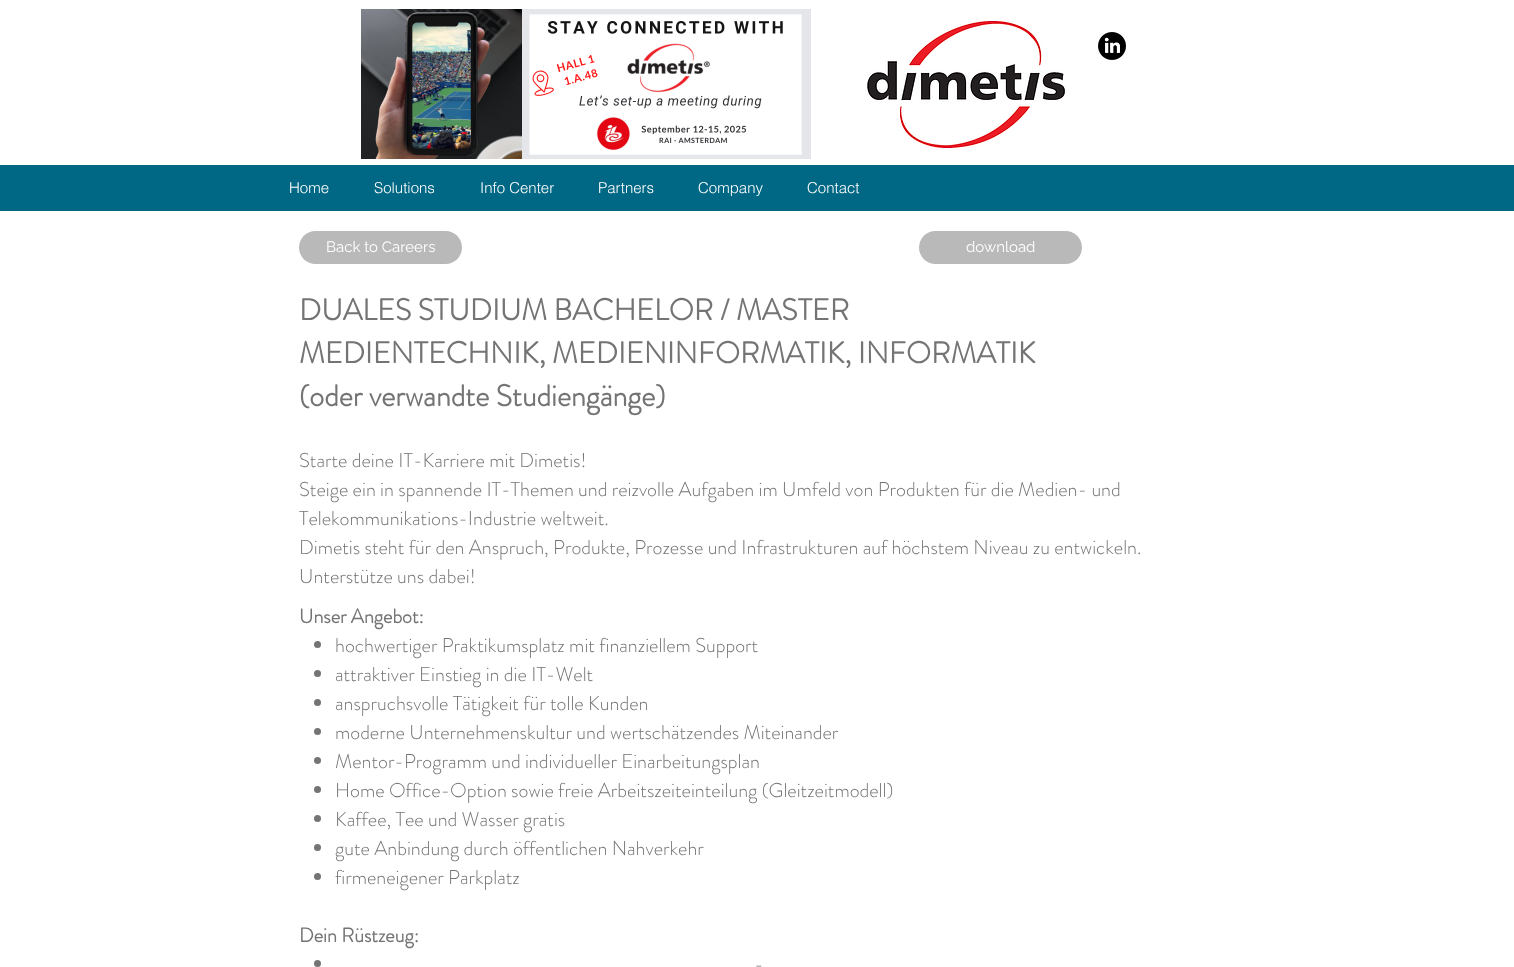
<?xml version="1.0" encoding="UTF-8"?>
<svg xmlns="http://www.w3.org/2000/svg" xmlns:xlink="http://www.w3.org/1999/xlink" width="1514" height="967">
  <rect width="100%" height="100%" fill="#ffffff" />
  <image x="361" y="9" width="450" height="150" xlink:href="image1.png" />
  <image x="867" y="21" width="198" height="129" xlink:href="image2.png" />
  <image x="1098" y="32" width="28" height="28" xlink:href="image3.png" />
  <rect y="165" width="1514" height="46" fill="#006884" />
  <rect x="299" y="231" width="163" height="33" rx="16.5" fill="#b9b9b9" />
  <rect x="919" y="231" width="163" height="33" rx="16.5" fill="#b9b9b9" />
  <circle cx="317.5" cy="644.5" r="3.5" fill="#747474" />
  <circle cx="317.5" cy="673.5" r="3.5" fill="#747474" />
  <circle cx="317.5" cy="702.5" r="3.5" fill="#747474" />
  <circle cx="317.5" cy="731.5" r="3.5" fill="#747474" />
  <circle cx="317.5" cy="760.5" r="3.5" fill="#747474" />
  <circle cx="317.5" cy="789.5" r="3.5" fill="#747474" />
  <circle cx="317.5" cy="818.5" r="3.5" fill="#747474" />
  <circle cx="317.5" cy="847.5" r="3.5" fill="#747474" />
  <circle cx="317.5" cy="876.5" r="3.5" fill="#747474" />
  <circle cx="317.5" cy="963.5" r="3.5" fill="#747474" />
  <text x="289" y="193" style="font-family: helvetica; font-size: 15px; font-weight: 300; fill: #ffffff">Home</text>
  <text x="374" y="193" style="font-family: helvetica; font-size: 15px; font-weight: 300; fill: #ffffff">Solutions</text>
  <text x="480" y="193" style="font-family: helvetica; font-size: 15px; font-weight: 300; fill: #ffffff">Info Center</text>
  <text x="598" y="193" style="font-family: helvetica; font-size: 15px; font-weight: 300; fill: #ffffff">Partners</text>
  <text x="698" y="193" style="font-family: helvetica; font-size: 15px; font-weight: 300; fill: #ffffff">Company</text>
  <text x="807" y="193" style="font-family: helvetica; font-size: 15px; font-weight: 300; fill: #ffffff">Contact</text>
  <text x="326" y="252" style="font-family: Raleway; font-size: 15px; fill: #ffffff">Back to Careers</text>
  <text x="966" y="252" style="font-family: Raleway; font-size: 15px; fill: #ffffff">download</text>
  <text x="299" y="320" style="font-family: 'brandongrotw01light'; font-size: 30px; font-weight: bold; fill: #747474">DUALES STUDIUM BACHELOR / MASTER</text>
  <text x="299" y="363" style="font-family: 'brandongrotw01light'; font-size: 30px; font-weight: bold; fill: #747474">MEDIENTECHNIK, MEDIENINFORMATIK, INFORMATIK</text>
  <text x="299" y="406" style="font-family: 'brandongrotw01light'; font-size: 30px; font-weight: bold; fill: #747474">(oder verwandte Studiengänge)</text>
  <text x="299" y="467" style="font-family: 'brandongrotw01light'; font-size: 20px; font-weight: 300; fill: #747474">Starte deine IT-Karriere mit Dimetis!</text>
  <text x="299" y="496" style="font-family: 'brandongrotw01light'; font-size: 20px; font-weight: 300; fill: #747474">Steige ein in spannende IT-Themen und reizvolle Aufgaben im Umfeld von Produkten für die Medien- und</text>
  <text x="299" y="525" style="font-family: 'brandongrotw01light'; font-size: 20px; font-weight: 300; fill: #747474">Telekommunikations-Industrie weltweit.</text>
  <text x="299" y="554" style="font-family: 'brandongrotw01light'; font-size: 20px; font-weight: 300; fill: #747474">Dimetis steht für den Anspruch, Produkte, Prozesse und Infrastrukturen auf höchstem Niveau zu entwickeln.</text>
  <text x="299" y="583" style="font-family: 'brandongrotw01light'; font-size: 20px; font-weight: 300; fill: #747474">Unterstütze uns dabei!</text>
  <text x="299" y="623" style="font-family: 'brandongrotw01light'; font-size: 20px; font-weight: bold; fill: #747474">Unser Angebot:</text>
  <text x="335" y="652" style="font-family: 'brandongrotw01light'; font-size: 20px; font-weight: 300; fill: #747474">hochwertiger Praktikumsplatz mit finanziellem Support</text>
  <text x="335" y="681" style="font-family: 'brandongrotw01light'; font-size: 20px; font-weight: 300; fill: #747474">attraktiver Einstieg in die IT-Welt</text>
  <text x="335" y="710" style="font-family: 'brandongrotw01light'; font-size: 20px; font-weight: 300; fill: #747474">anspruchsvolle Tätigkeit für tolle Kunden</text>
  <text x="335" y="739" style="font-family: 'brandongrotw01light'; font-size: 20px; font-weight: 300; fill: #747474">moderne Unternehmenskultur und wertschätzendes Miteinander</text>
  <text x="335" y="768" style="font-family: 'brandongrotw01light'; font-size: 20px; font-weight: 300; fill: #747474">Mentor-Programm und individueller Einarbeitungsplan</text>
  <text x="335" y="797" style="font-family: 'brandongrotw01light'; font-size: 20px; font-weight: 300; fill: #747474">Home Office-Option sowie freie Arbeitszeiteinteilung (Gleitzeitmodell)</text>
  <text x="335" y="826" style="font-family: 'brandongrotw01light'; font-size: 20px; font-weight: 300; fill: #747474">Kaffee, Tee und Wasser gratis</text>
  <text x="335" y="855" style="font-family: 'brandongrotw01light'; font-size: 20px; font-weight: 300; fill: #747474">gute Anbindung durch öffentlichen Nahverkehr</text>
  <text x="335" y="884" style="font-family: 'brandongrotw01light'; font-size: 20px; font-weight: 300; fill: #747474">firmeneigener Parkplatz</text>
  <text x="299" y="942" style="font-family: 'brandongrotw01light'; font-size: 20px; font-weight: bold; fill: #747474">Dein Rüstzeug:</text>
  <text x="754" y="971" style="font-family: 'brandongrotw01light'; font-size: 20px; font-weight: 300; fill: #747474">-</text>
</svg>
